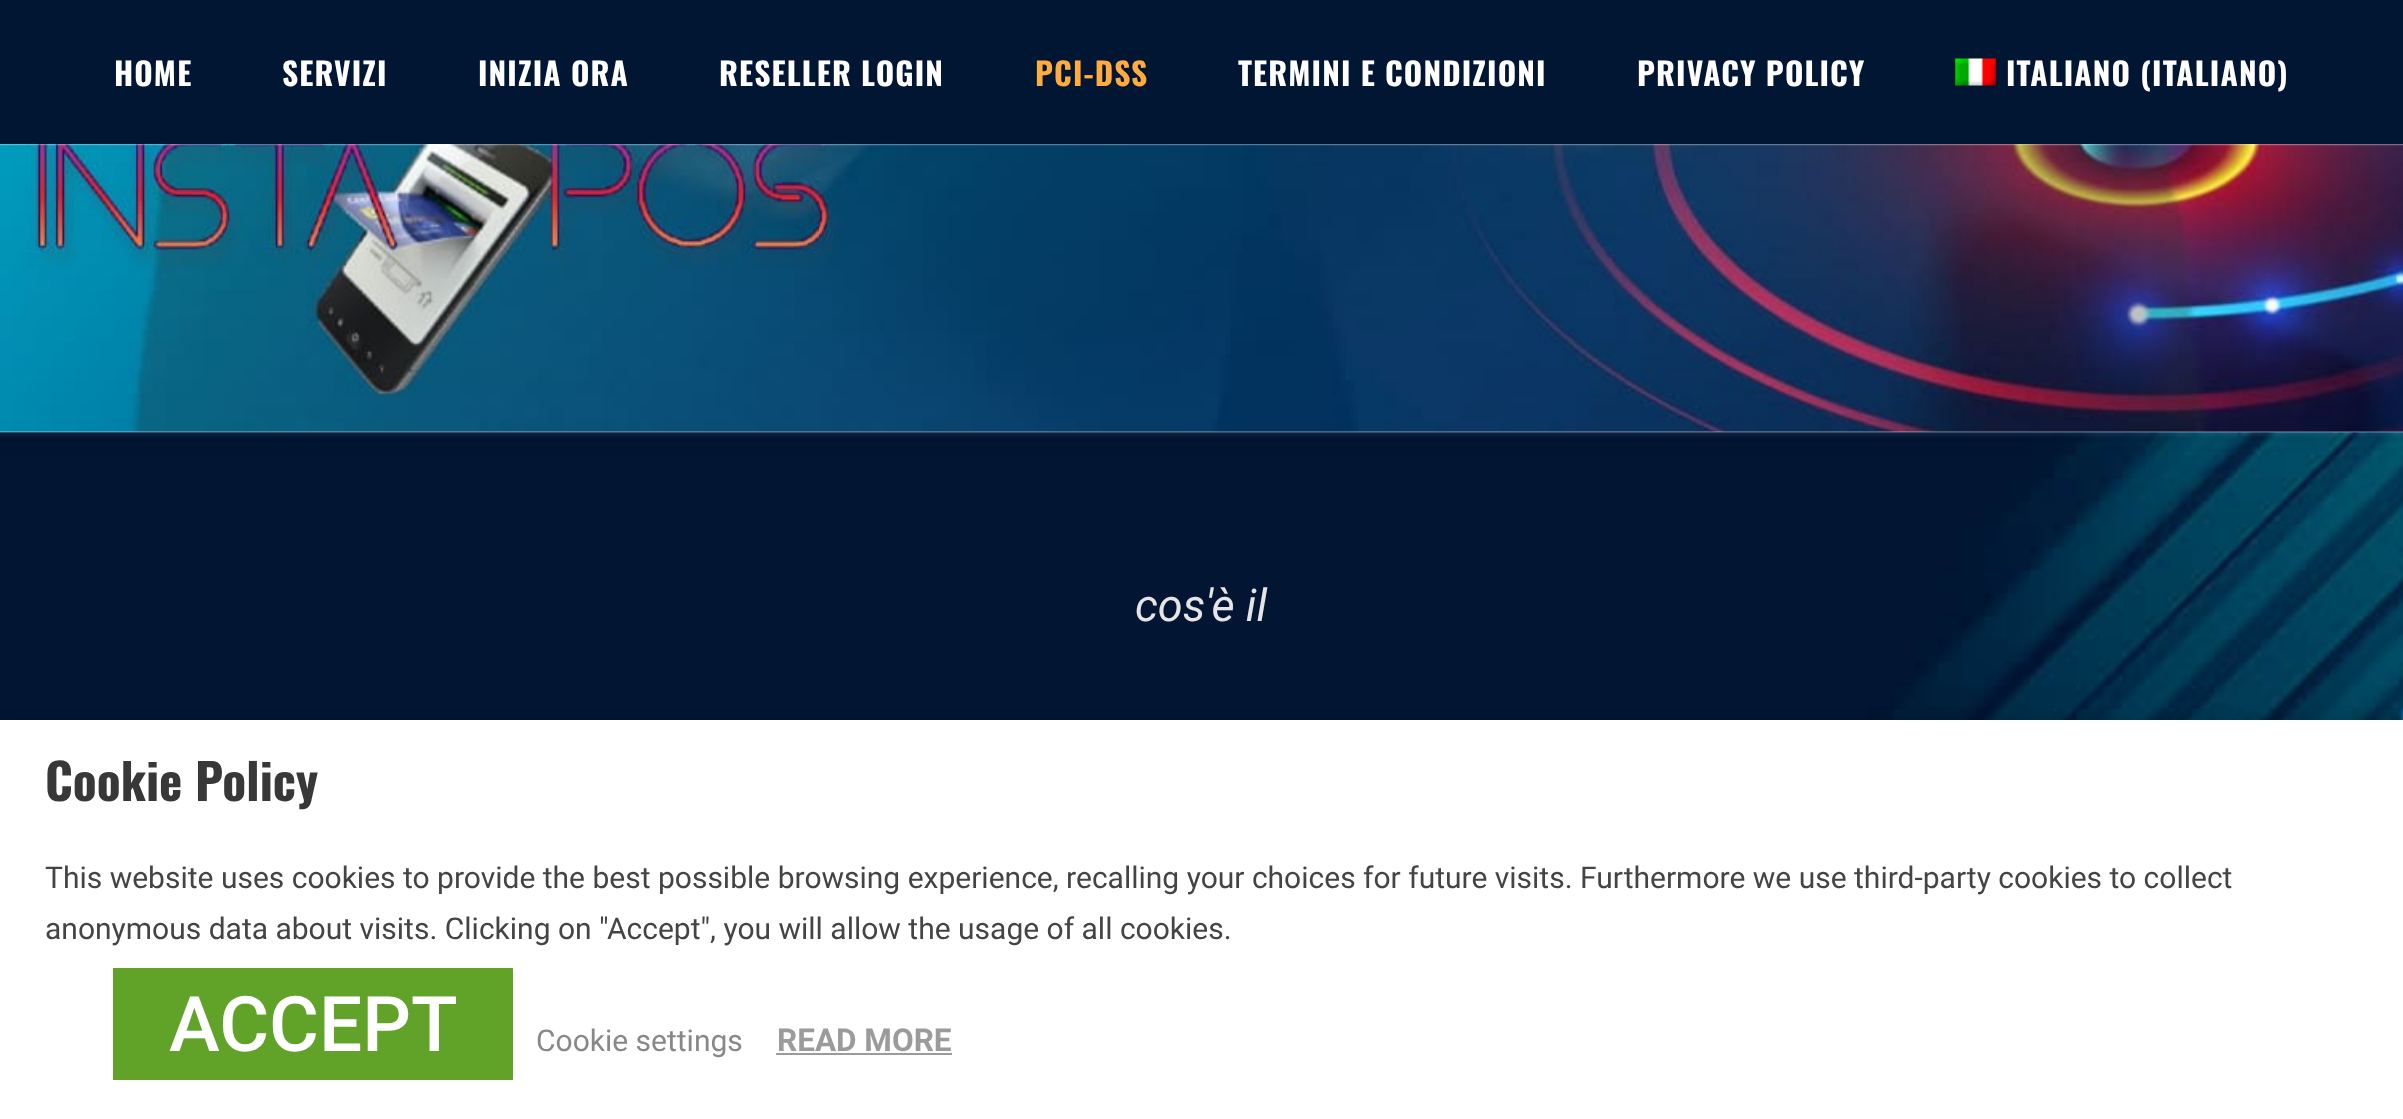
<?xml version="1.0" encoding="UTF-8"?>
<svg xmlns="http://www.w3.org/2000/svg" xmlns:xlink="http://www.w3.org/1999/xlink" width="2403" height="1119">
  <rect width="100%" height="100%" fill="#ffffff" />
  <rect width="2403" height="144" fill="#001633" />
  <image x="1955" y="58" width="41" height="28" xlink:href="image1.png" />
  <image x="0" y="144" width="2403" height="288" xlink:href="image2.png" />
  <image x="0" y="432" width="2403" height="288" xlink:href="image3.png" />
  <rect y="731" width="2403" height="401" fill="#000000" fill-opacity="0.5" filter="blur(11px)" />
  <rect y="720" width="2403" height="399" fill="#ffffff" />
  <rect x="113" y="968" width="400" height="112" fill="#61a229" />
  <rect x="776" y="1053" width="176" height="2" fill="#9b9b9b" />
  <text x="114" y="86" style="font-family: Oswald; font-size: 31.5px; font-weight: bold; letter-spacing: 1.1px; fill: #ffffff">HOME</text>
  <text x="282" y="86" style="font-family: Oswald; font-size: 31.5px; font-weight: bold; letter-spacing: 1.1px; fill: #ffffff">SERVIZI</text>
  <text x="478" y="86" style="font-family: Oswald; font-size: 31.5px; font-weight: bold; letter-spacing: 1.1px; fill: #ffffff">INIZIA ORA</text>
  <text x="719" y="86" style="font-family: Oswald; font-size: 31.5px; font-weight: bold; letter-spacing: 1.1px; fill: #ffffff">RESELLER LOGIN</text>
  <text x="1035" y="86" style="font-family: Oswald; font-size: 31.5px; font-weight: bold; letter-spacing: 1.1px; fill: #ffab40">PCI-DSS</text>
  <text x="1238" y="86" style="font-family: Oswald; font-size: 31.5px; font-weight: bold; letter-spacing: 1.1px; fill: #ffffff">TERMINI E CONDIZIONI</text>
  <text x="1637" y="86" style="font-family: Oswald; font-size: 31.5px; font-weight: bold; letter-spacing: 1.1px; fill: #ffffff">PRIVACY POLICY</text>
  <text x="2006" y="86" style="font-family: Oswald; font-size: 31.5px; font-weight: bold; letter-spacing: 1.1px; fill: #ffffff">ITALIANO (ITALIANO)</text>
  <text x="1135" y="621" style="font-family: Roboto; font-size: 45px; font-style: italic; fill: #e5e5e5">cos'è il</text>
  <text x="45" y="801" style="font-family: Oswald; font-size: 49.5px; font-weight: bold; fill: #383838">Cookie Policy</text>
  <text x="45" y="888" style="font-family: Roboto; font-size: 30px; fill: #444444">This website uses cookies to provide the best possible browsing experience, recalling your choices for future visits. Furthermore we use third-party cookies to collect</text>
  <text x="45" y="939" style="font-family: Roboto; font-size: 30px; fill: #444444">anonymous data about visits. Clicking on "Accept", you will allow the usage of all cookies.</text>
  <text x="169" y="1051" style="font-family: Roboto; font-size: 76.5px; font-weight: 500; fill: #ffffff">ACCEPT</text>
  <text x="536" y="1051" style="font-family: Roboto; font-size: 30px; fill: #898888">Cookie settings</text>
  <text x="777" y="1051" style="font-family: Roboto; font-size: 31.5px; font-weight: bold; fill: #9b9b9b">READ MORE</text>
</svg>
